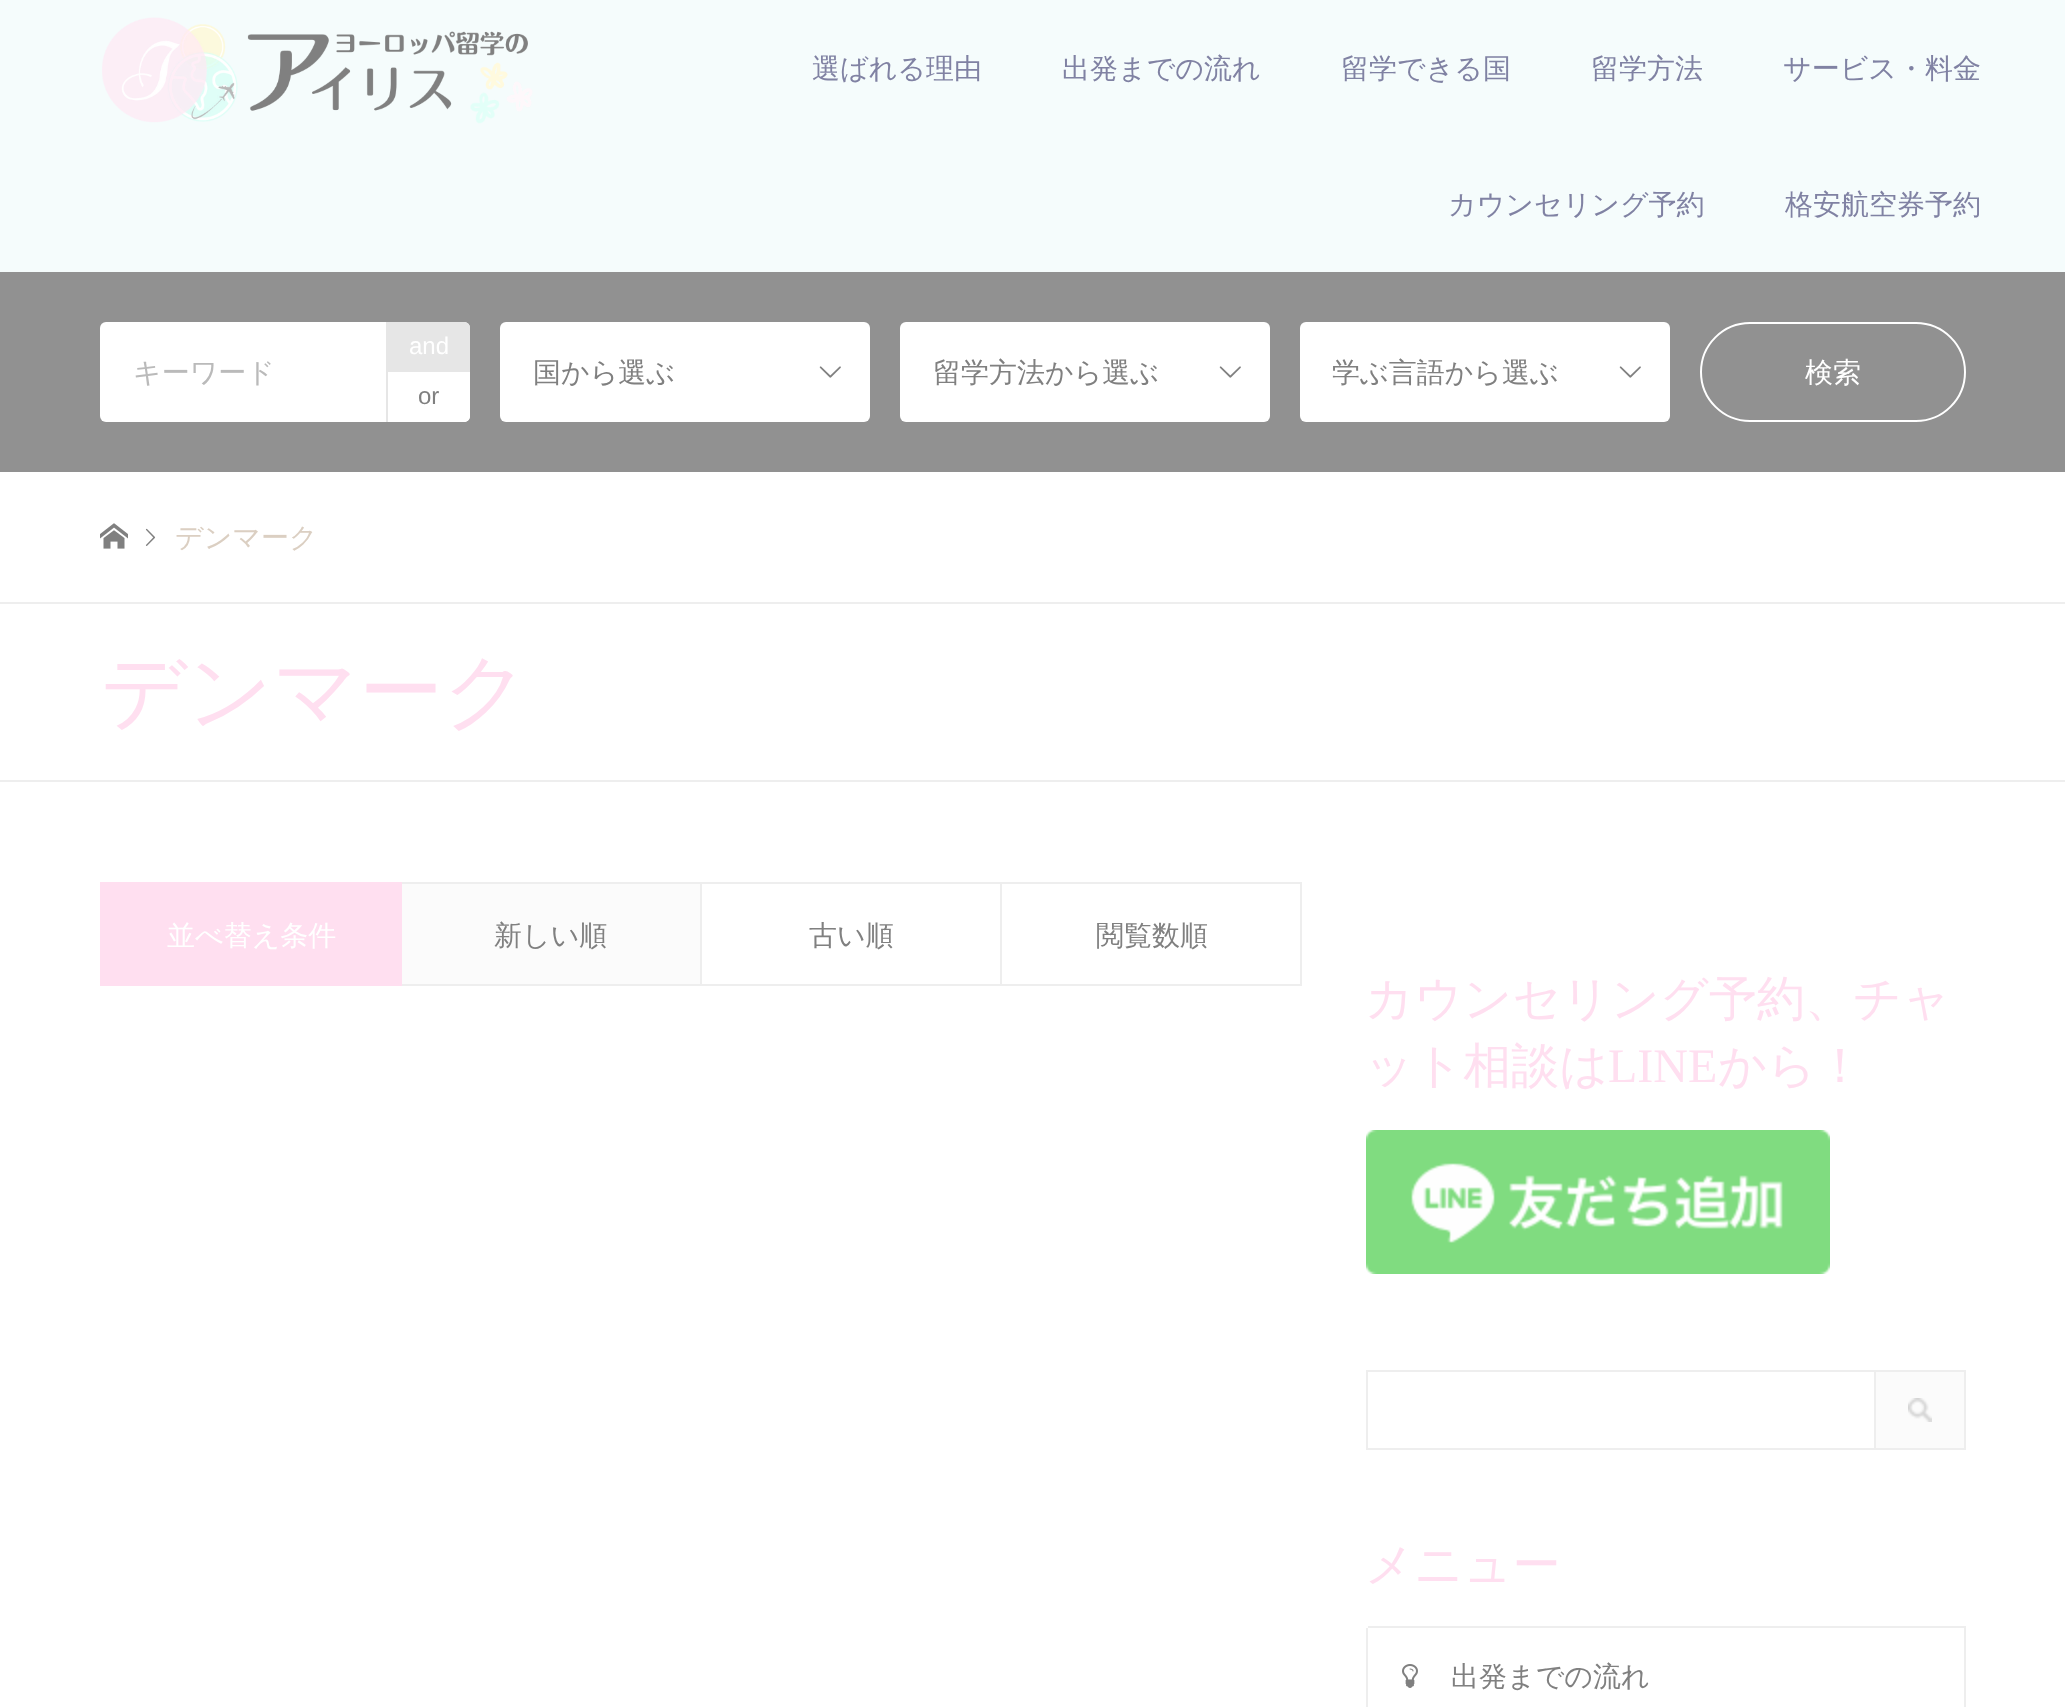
<?xml version="1.0" encoding="UTF-8"?>
<svg xmlns="http://www.w3.org/2000/svg" xmlns:xlink="http://www.w3.org/1999/xlink" width="2065" height="1707">
  <rect width="100%" height="100%" fill="#ffffff" />
  <rect width="2065" height="272" fill="#f5fcfc" />
  <image x="102" y="17" width="431" height="107" xlink:href="image1.png" />
  <rect y="272" width="2065" height="200" fill="#919191" />
  <rect x="100" y="322" width="370" height="100" rx="6" fill="#ffffff" />
  <path d="M 386 322 h 78 c 3.5 0 6 2.5 6 6 v 44 h -84 z" fill="#e6e6e6" />
  <path d="M 386 372 h 84 v 44 c 0 3.5 -2.5 6 -6 6 h -78 z" fill="#ffffff" />
  <rect x="386" y="372" width="2" height="50" fill="#e6e6e6" />
  <rect x="500" y="322" width="370" height="100" rx="6" fill="#ffffff" />
  <image x="819" y="366" width="22" height="12" xlink:href="image2.png" />
  <rect x="900" y="322" width="370" height="100" rx="6" fill="#ffffff" />
  <image x="1219" y="366" width="22" height="12" xlink:href="image2.png" />
  <rect x="1300" y="322" width="370" height="100" rx="6" fill="#ffffff" />
  <image x="1619" y="366" width="22" height="12" xlink:href="image2.png" />
  <rect x="1701" y="323" width="264" height="98" rx="49" fill="none" stroke="#ffffff" stroke-width="2" />
  <rect y="602" width="2065" height="2" fill="#eeeeee" />
  <image x="100" y="523" width="28" height="26" xlink:href="image3.png" />
  <image x="145" y="528" width="11" height="18" xlink:href="image4.png" />
  <rect y="780" width="2065" height="2" fill="#eeeeee" />
  <rect x="100" y="882" width="302" height="104" fill="#ffdff0" />
  <rect x="402" y="884" width="298" height="100" fill="#fbfbfb" />
  <rect x="402" y="882" width="900" height="2" fill="#eeeeee" />
  <rect x="700" y="882" width="2" height="104" fill="#eeeeee" />
  <rect x="402" y="984" width="300" height="2" fill="#eeeeee" />
  <rect x="1000" y="882" width="2" height="104" fill="#eeeeee" />
  <rect x="702" y="984" width="300" height="2" fill="#eeeeee" />
  <rect x="1300" y="882" width="2" height="104" fill="#eeeeee" />
  <rect x="1002" y="984" width="300" height="2" fill="#eeeeee" />
  <image x="1366" y="1130" width="464" height="144" xlink:href="image5.png" />
  <rect x="1367" y="1371" width="508" height="78" fill="none" stroke="#eeeeee" stroke-width="2" />
  <rect x="1876" y="1372" width="88" height="76" fill="#fbfbfb" />
  <image x="1908" y="1398" width="24" height="24" xlink:href="image6.png" />
  <rect x="1876" y="1370" width="90" height="2" fill="#eeeeee" />
  <rect x="1964" y="1370" width="2" height="80" fill="#eeeeee" />
  <rect x="1876" y="1448" width="90" height="2" fill="#eeeeee" />
  <rect x="1366" y="1628" width="2" height="79" fill="#eeeeee" />
  <rect x="1368" y="1626" width="598" height="2" fill="#eeeeee" />
  <rect x="1964" y="1626" width="2" height="81" fill="#eeeeee" />
  <image x="1402" y="1664" width="16" height="24" xlink:href="image7.png" />
  <text x="812" y="78" style="font-family: WenQuanYi Zen Hei; font-size: 28px; font-weight: 500; fill: #8082a3">選ばれる理由</text>
  <text x="1062" y="78" style="font-family: WenQuanYi Zen Hei; font-size: 28px; font-weight: 500; fill: #8082a3">出発までの流れ</text>
  <text x="1341" y="78" style="font-family: WenQuanYi Zen Hei; font-size: 28px; font-weight: 500; fill: #8082a3">留学できる国</text>
  <text x="1591" y="78" style="font-family: WenQuanYi Zen Hei; font-size: 28px; font-weight: 500; fill: #8082a3">留学方法</text>
  <text x="1783" y="78" style="font-family: WenQuanYi Zen Hei; font-size: 28px; font-weight: 500; fill: #8082a3">サービス・料金</text>
  <text x="1448" y="214" style="font-family: WenQuanYi Zen Hei; font-size: 28px; font-weight: 500; fill: #8082a3">カウンセリング予約</text>
  <text x="1785" y="214" style="font-family: WenQuanYi Zen Hei; font-size: 28px; font-weight: 500; fill: #8082a3">格安航空券予約</text>
  <text x="133" y="382" style="font-family: WenQuanYi Zen Hei; font-size: 28px; font-weight: 500; fill: #bababa">キーワード</text>
  <text x="409" y="354" style="font-family: Liberation Sans; font-size: 24px; fill: #ffffff">and</text>
  <text x="418" y="404" style="font-family: Liberation Sans; font-size: 24px; fill: #808080">or</text>
  <text x="533" y="382" style="font-family: WenQuanYi Zen Hei; font-size: 28px; font-weight: 500; fill: #808080">国から選ぶ</text>
  <text x="933" y="382" style="font-family: WenQuanYi Zen Hei; font-size: 28px; font-weight: 500; fill: #808080">留学方法から選ぶ</text>
  <text x="1332" y="382" style="font-family: WenQuanYi Zen Hei; font-size: 28px; font-weight: 500; fill: #808080">学ぶ言語から選ぶ</text>
  <text x="1805" y="382" style="font-family: WenQuanYi Zen Hei; font-size: 28px; font-weight: 500; fill: #ffffff">検索</text>
  <text x="175" y="547" style="font-family: WenQuanYi Zen Hei; font-size: 28px; font-weight: 500; fill: #dbcfc2">デンマーク</text>
  <text x="101" y="720" style="font-family: WenQuanYi Zen Hei; font-size: 84px; font-weight: 500; fill: #ffdff0">デンマーク</text>
  <text x="167" y="945" style="font-family: WenQuanYi Zen Hei; font-size: 28px; font-weight: 500; fill: #ffffff">並べ替え条件</text>
  <text x="494" y="945" style="font-family: WenQuanYi Zen Hei; font-size: 28px; font-weight: 500; fill: #808080">新しい順</text>
  <text x="809" y="945" style="font-family: WenQuanYi Zen Hei; font-size: 28px; font-weight: 500; fill: #808080">古い順</text>
  <text x="1096" y="945" style="font-family: WenQuanYi Zen Hei; font-size: 28px; font-weight: 500; fill: #808080">閲覧数順</text>
  <text x="1365" y="1015" style="font-family: WenQuanYi Zen Hei; font-size: 48px; font-weight: 500; fill: #ffdff0">カウンセリング予約、チャ</text>
  <text x="1365" y="1082" style="font-family: WenQuanYi Zen Hei; font-size: 48px; font-weight: 500; fill: #ffdff0">ット相談は</text>
  <text x="1608" y="1082" style="font-family: Liberation Serif; font-size: 48px; fill: #ffdff0">LINE</text>
  <text x="1718" y="1082" style="font-family: WenQuanYi Zen Hei; font-size: 48px; font-weight: 500; fill: #ffdff0">から！</text>
  <text x="1365" y="1581" style="font-family: WenQuanYi Zen Hei; font-size: 48px; font-weight: 500; fill: #ffdff0">メニュー</text>
  <text x="1451" y="1686" style="font-family: WenQuanYi Zen Hei; font-size: 28px; font-weight: 500; fill: #808080">出発までの流れ</text>
</svg>
